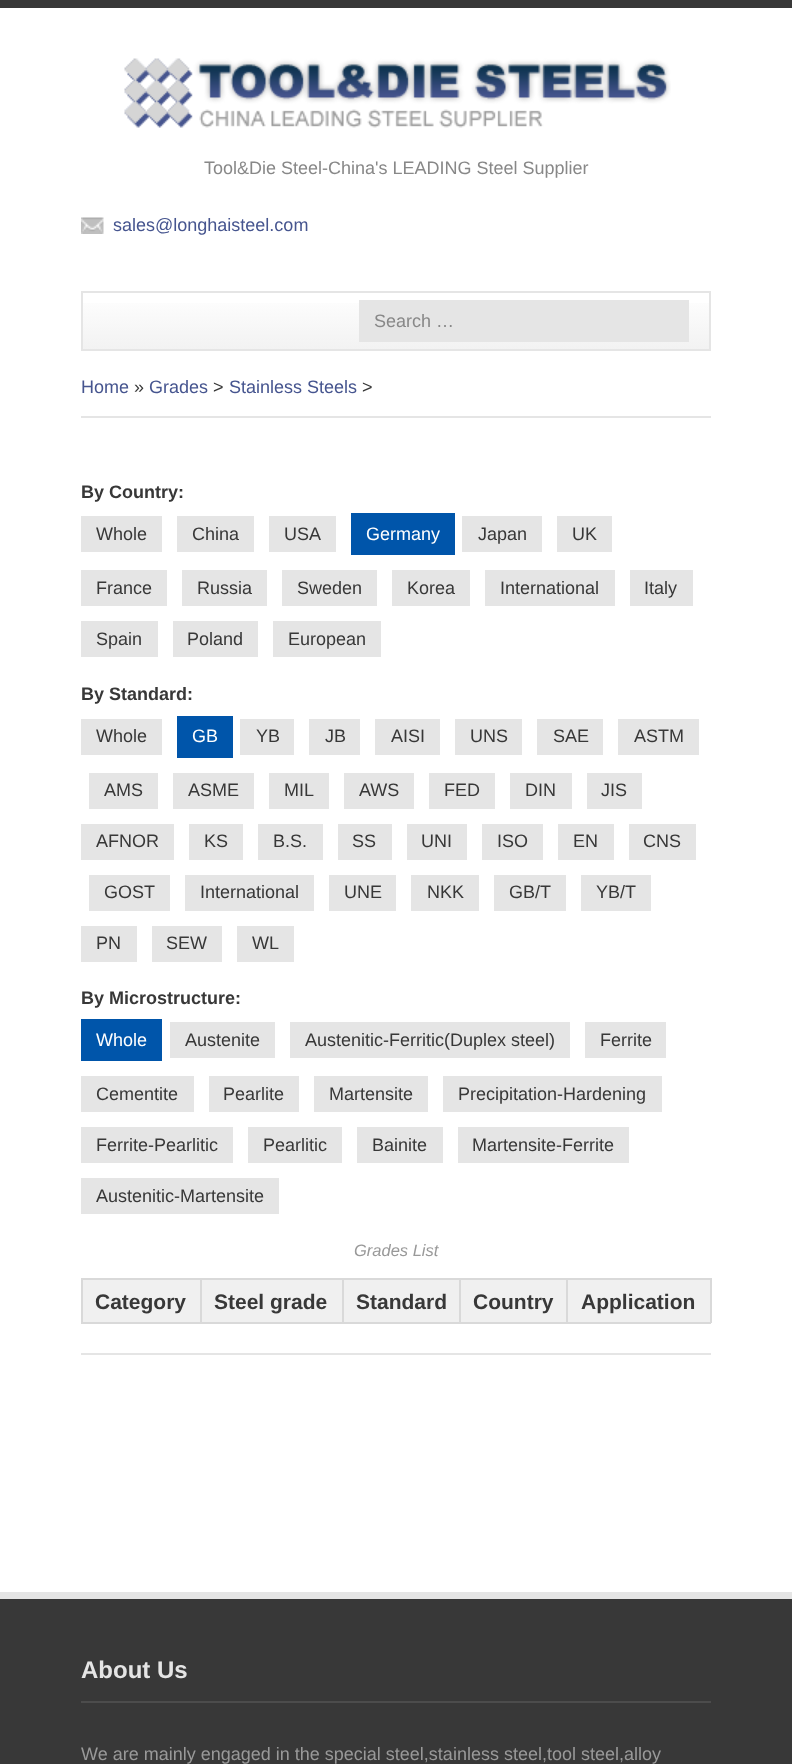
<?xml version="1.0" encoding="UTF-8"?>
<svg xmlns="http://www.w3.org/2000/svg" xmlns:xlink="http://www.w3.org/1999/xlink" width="792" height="1764">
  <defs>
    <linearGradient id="g1" gradientUnits="userSpaceOnUse" x1="396" y1="292" x2="396" y2="350"><stop offset="0" stop-color="#ffffff" /><stop offset="1" stop-color="#f2f2f2" /></linearGradient>
  </defs>
  <rect width="100%" height="100%" fill="#ffffff" />
  <rect width="792" height="8" fill="#383838" />
  <image x="124" y="58" width="547" height="70" xlink:href="image1.png" />
  <image x="81" y="217" width="23" height="17" xlink:href="image2.png" />
  <rect x="83" y="303" width="626" height="46" fill="url(#g1)" />
  <rect x="82" y="292" width="628" height="58" fill="none" stroke="#e5e5e5" stroke-width="2" />
  <rect x="359" y="300" width="330" height="42" fill="#e5e5e5" />
  <rect x="81" y="416" width="630" height="2" fill="#e5e5e5" />
  <rect x="81" y="516" width="81" height="36" fill="#e5e5e5" />
  <rect x="177" y="516" width="77" height="36" fill="#e5e5e5" />
  <rect x="269" y="516" width="67" height="36" fill="#e5e5e5" />
  <rect x="351" y="513" width="104" height="42" fill="#0055aa" />
  <rect x="462" y="516" width="80" height="36" fill="#e5e5e5" />
  <rect x="557" y="516" width="55" height="36" fill="#e5e5e5" />
  <rect x="81" y="570" width="86" height="36" fill="#e5e5e5" />
  <rect x="182" y="570" width="85" height="36" fill="#e5e5e5" />
  <rect x="282" y="570" width="95" height="36" fill="#e5e5e5" />
  <rect x="392" y="570" width="78" height="36" fill="#e5e5e5" />
  <rect x="485" y="570" width="130" height="36" fill="#e5e5e5" />
  <rect x="630" y="570" width="63" height="36" fill="#e5e5e5" />
  <rect x="81" y="621" width="77" height="36" fill="#e5e5e5" />
  <rect x="173" y="621" width="85" height="36" fill="#e5e5e5" />
  <rect x="273" y="621" width="108" height="36" fill="#e5e5e5" />
  <rect x="81" y="719" width="81" height="36" fill="#e5e5e5" />
  <rect x="177" y="716" width="56" height="42" fill="#0055aa" />
  <rect x="240" y="719" width="54" height="36" fill="#e5e5e5" />
  <rect x="309" y="719" width="51" height="36" fill="#e5e5e5" />
  <rect x="375" y="719" width="65" height="36" fill="#e5e5e5" />
  <rect x="455" y="719" width="67" height="36" fill="#e5e5e5" />
  <rect x="537" y="719" width="66" height="36" fill="#e5e5e5" />
  <rect x="618" y="719" width="81" height="36" fill="#e5e5e5" />
  <rect x="89" y="773" width="69" height="36" fill="#e5e5e5" />
  <rect x="173" y="773" width="81" height="36" fill="#e5e5e5" />
  <rect x="269" y="773" width="60" height="36" fill="#e5e5e5" />
  <rect x="344" y="773" width="70" height="36" fill="#e5e5e5" />
  <rect x="429" y="773" width="66" height="36" fill="#e5e5e5" />
  <rect x="510" y="773" width="62" height="36" fill="#e5e5e5" />
  <rect x="587" y="773" width="55" height="36" fill="#e5e5e5" />
  <rect x="81" y="824" width="93" height="36" fill="#e5e5e5" />
  <rect x="189" y="824" width="54" height="36" fill="#e5e5e5" />
  <rect x="258" y="824" width="65" height="36" fill="#e5e5e5" />
  <rect x="338" y="824" width="54" height="36" fill="#e5e5e5" />
  <rect x="407" y="824" width="60" height="36" fill="#e5e5e5" />
  <rect x="482" y="824" width="61" height="36" fill="#e5e5e5" />
  <rect x="558" y="824" width="56" height="36" fill="#e5e5e5" />
  <rect x="629" y="824" width="67" height="36" fill="#e5e5e5" />
  <rect x="89" y="875" width="81" height="36" fill="#e5e5e5" />
  <rect x="185" y="875" width="129" height="36" fill="#e5e5e5" />
  <rect x="329" y="875" width="67" height="36" fill="#e5e5e5" />
  <rect x="411" y="875" width="68" height="36" fill="#e5e5e5" />
  <rect x="494" y="875" width="72" height="36" fill="#e5e5e5" />
  <rect x="581" y="875" width="70" height="36" fill="#e5e5e5" />
  <rect x="81" y="926" width="56" height="36" fill="#e5e5e5" />
  <rect x="152" y="926" width="70" height="36" fill="#e5e5e5" />
  <rect x="237" y="926" width="57" height="36" fill="#e5e5e5" />
  <rect x="81" y="1019" width="81" height="42" fill="#0055aa" />
  <rect x="170" y="1022" width="105" height="36" fill="#e5e5e5" />
  <rect x="290" y="1022" width="280" height="36" fill="#e5e5e5" />
  <rect x="585" y="1022" width="81" height="36" fill="#e5e5e5" />
  <rect x="81" y="1076" width="113" height="36" fill="#e5e5e5" />
  <rect x="209" y="1076" width="90" height="36" fill="#e5e5e5" />
  <rect x="314" y="1076" width="114" height="36" fill="#e5e5e5" />
  <rect x="443" y="1076" width="219" height="36" fill="#e5e5e5" />
  <rect x="81" y="1127" width="152" height="36" fill="#e5e5e5" />
  <rect x="248" y="1127" width="94" height="36" fill="#e5e5e5" />
  <rect x="357" y="1127" width="86" height="36" fill="#e5e5e5" />
  <rect x="458" y="1127" width="171" height="36" fill="#e5e5e5" />
  <rect x="81" y="1178" width="198" height="36" fill="#e5e5e5" />
  <rect x="83" y="1280" width="117" height="42" fill="#f0f0f0" />
  <rect x="566" y="1278" width="145" height="2" fill="#d9d9d9" />
  <rect x="710" y="1278" width="2" height="45" fill="#d9d9d9" />
  <rect x="566" y="1322" width="145" height="2" fill="#d9d9d9" />
  <rect x="566" y="1278" width="2" height="45" fill="#d9d9d9" />
  <rect x="459" y="1278" width="108" height="2" fill="#d9d9d9" />
  <rect x="459" y="1322" width="108" height="2" fill="#d9d9d9" />
  <rect x="459" y="1278" width="2" height="45" fill="#d9d9d9" />
  <rect x="342" y="1278" width="119" height="2" fill="#d9d9d9" />
  <rect x="342" y="1322" width="119" height="2" fill="#d9d9d9" />
  <rect x="342" y="1278" width="2" height="45" fill="#d9d9d9" />
  <rect x="200" y="1278" width="144" height="2" fill="#d9d9d9" />
  <rect x="200" y="1322" width="144" height="2" fill="#d9d9d9" />
  <rect x="200" y="1278" width="2" height="45" fill="#d9d9d9" />
  <rect x="81" y="1278" width="120" height="2" fill="#d9d9d9" />
  <rect x="81" y="1322" width="120" height="2" fill="#d9d9d9" />
  <rect x="81" y="1278" width="2" height="45" fill="#d9d9d9" />
  <rect x="202" y="1280" width="140" height="42" fill="#f0f0f0" />
  <rect x="344" y="1280" width="115" height="42" fill="#f0f0f0" />
  <rect x="461" y="1280" width="105" height="42" fill="#f0f0f0" />
  <rect x="568" y="1280" width="142" height="42" fill="#f0f0f0" />
  <rect x="81" y="1353" width="630" height="2" fill="#e5e5e5" />
  <rect y="1599" width="792" height="165" fill="#383838" />
  <rect y="1592" width="792" height="7" fill="#e5e5e5" />
  <rect x="81" y="1701" width="630" height="2" fill="#4c4c4c" />
  <text x="204" y="174" style="font-family: Liberation Sans; font-size: 18px; fill: #888888">Tool&amp;Die Steel-China's LEADING Steel Supplier</text>
  <text x="113" y="231" style="font-family: Liberation Sans; font-size: 18px; fill: #46558f">sales@longhaisteel.com</text>
  <text x="374" y="327" style="font-family: Liberation Sans; font-size: 18px; fill: #888888">Search …</text>
  <text x="81" y="393" style="font-family: Liberation Sans; font-size: 18px; fill: #46558f">Home</text>
  <text x="134" y="393" style="font-family: Liberation Sans; font-size: 18px; fill: #383838">»</text>
  <text x="149" y="393" style="font-family: Liberation Sans; font-size: 18px; fill: #46558f">Grades</text>
  <text x="213" y="393" style="font-family: Liberation Sans; font-size: 18px; fill: #383838">&gt;</text>
  <text x="229" y="393" style="font-family: Liberation Sans; font-size: 18px; fill: #46558f">Stainless Steels</text>
  <text x="362" y="393" style="font-family: Liberation Sans; font-size: 18px; fill: #383838">&gt;</text>
  <text x="81" y="498" style="font-family: Liberation Sans; font-size: 18px; font-weight: bold; fill: #383838">By Country:</text>
  <text x="96" y="540" style="font-family: Liberation Sans; font-size: 18px; fill: #383838">Whole</text>
  <text x="192" y="540" style="font-family: Liberation Sans; font-size: 18px; fill: #383838">China</text>
  <text x="284" y="540" style="font-family: Liberation Sans; font-size: 18px; fill: #383838">USA</text>
  <text x="366" y="540" style="font-family: Liberation Sans; font-size: 18px; fill: #ffffff">Germany</text>
  <text x="478" y="540" style="font-family: Liberation Sans; font-size: 18px; fill: #383838">Japan</text>
  <text x="572" y="540" style="font-family: Liberation Sans; font-size: 18px; fill: #383838">UK</text>
  <text x="96" y="594" style="font-family: Liberation Sans; font-size: 18px; fill: #383838">France</text>
  <text x="197" y="594" style="font-family: Liberation Sans; font-size: 18px; fill: #383838">Russia</text>
  <text x="297" y="594" style="font-family: Liberation Sans; font-size: 18px; fill: #383838">Sweden</text>
  <text x="407" y="594" style="font-family: Liberation Sans; font-size: 18px; fill: #383838">Korea</text>
  <text x="500" y="594" style="font-family: Liberation Sans; font-size: 18px; fill: #383838">International</text>
  <text x="644" y="594" style="font-family: Liberation Sans; font-size: 18px; fill: #383838">Italy</text>
  <text x="96" y="645" style="font-family: Liberation Sans; font-size: 18px; fill: #383838">Spain</text>
  <text x="187" y="645" style="font-family: Liberation Sans; font-size: 18px; fill: #383838">Poland</text>
  <text x="288" y="645" style="font-family: Liberation Sans; font-size: 18px; fill: #383838">European</text>
  <text x="81" y="700" style="font-family: Liberation Sans; font-size: 18px; font-weight: bold; fill: #383838">By Standard:</text>
  <text x="96" y="742" style="font-family: Liberation Sans; font-size: 18px; fill: #383838">Whole</text>
  <text x="192" y="742" style="font-family: Liberation Sans; font-size: 18px; fill: #ffffff">GB</text>
  <text x="256" y="742" style="font-family: Liberation Sans; font-size: 18px; fill: #383838">YB</text>
  <text x="325" y="742" style="font-family: Liberation Sans; font-size: 18px; fill: #383838">JB</text>
  <text x="391" y="742" style="font-family: Liberation Sans; font-size: 18px; fill: #383838">AISI</text>
  <text x="470" y="742" style="font-family: Liberation Sans; font-size: 18px; fill: #383838">UNS</text>
  <text x="553" y="742" style="font-family: Liberation Sans; font-size: 18px; fill: #383838">SAE</text>
  <text x="634" y="742" style="font-family: Liberation Sans; font-size: 18px; fill: #383838">ASTM</text>
  <text x="104" y="796" style="font-family: Liberation Sans; font-size: 18px; fill: #383838">AMS</text>
  <text x="188" y="796" style="font-family: Liberation Sans; font-size: 18px; fill: #383838">ASME</text>
  <text x="284" y="796" style="font-family: Liberation Sans; font-size: 18px; fill: #383838">MIL</text>
  <text x="359" y="796" style="font-family: Liberation Sans; font-size: 18px; fill: #383838">AWS</text>
  <text x="444" y="796" style="font-family: Liberation Sans; font-size: 18px; fill: #383838">FED</text>
  <text x="525" y="796" style="font-family: Liberation Sans; font-size: 18px; fill: #383838">DIN</text>
  <text x="601" y="796" style="font-family: Liberation Sans; font-size: 18px; fill: #383838">JIS</text>
  <text x="96" y="847" style="font-family: Liberation Sans; font-size: 18px; fill: #383838">AFNOR</text>
  <text x="204" y="847" style="font-family: Liberation Sans; font-size: 18px; fill: #383838">KS</text>
  <text x="273" y="847" style="font-family: Liberation Sans; font-size: 18px; fill: #383838">B.S.</text>
  <text x="352" y="847" style="font-family: Liberation Sans; font-size: 18px; fill: #383838">SS</text>
  <text x="421" y="847" style="font-family: Liberation Sans; font-size: 18px; fill: #383838">UNI</text>
  <text x="497" y="847" style="font-family: Liberation Sans; font-size: 18px; fill: #383838">ISO</text>
  <text x="573" y="847" style="font-family: Liberation Sans; font-size: 18px; fill: #383838">EN</text>
  <text x="643" y="847" style="font-family: Liberation Sans; font-size: 18px; fill: #383838">CNS</text>
  <text x="104" y="898" style="font-family: Liberation Sans; font-size: 18px; fill: #383838">GOST</text>
  <text x="200" y="898" style="font-family: Liberation Sans; font-size: 18px; fill: #383838">International</text>
  <text x="344" y="898" style="font-family: Liberation Sans; font-size: 18px; fill: #383838">UNE</text>
  <text x="427" y="898" style="font-family: Liberation Sans; font-size: 18px; fill: #383838">NKK</text>
  <text x="509" y="898" style="font-family: Liberation Sans; font-size: 18px; fill: #383838">GB/T</text>
  <text x="596" y="898" style="font-family: Liberation Sans; font-size: 18px; fill: #383838">YB/T</text>
  <text x="96" y="949" style="font-family: Liberation Sans; font-size: 18px; fill: #383838">PN</text>
  <text x="166" y="949" style="font-family: Liberation Sans; font-size: 18px; fill: #383838">SEW</text>
  <text x="252" y="949" style="font-family: Liberation Sans; font-size: 18px; fill: #383838">WL</text>
  <text x="81" y="1004" style="font-family: Liberation Sans; font-size: 18px; font-weight: bold; fill: #383838">By Microstructure:</text>
  <text x="96" y="1046" style="font-family: Liberation Sans; font-size: 18px; fill: #ffffff">Whole</text>
  <text x="185" y="1046" style="font-family: Liberation Sans; font-size: 18px; fill: #383838">Austenite</text>
  <text x="305" y="1046" style="font-family: Liberation Sans; font-size: 18px; fill: #383838">Austenitic-Ferritic(Duplex steel)</text>
  <text x="600" y="1046" style="font-family: Liberation Sans; font-size: 18px; fill: #383838">Ferrite</text>
  <text x="96" y="1100" style="font-family: Liberation Sans; font-size: 18px; fill: #383838">Cementite</text>
  <text x="223" y="1100" style="font-family: Liberation Sans; font-size: 18px; fill: #383838">Pearlite</text>
  <text x="329" y="1100" style="font-family: Liberation Sans; font-size: 18px; fill: #383838">Martensite</text>
  <text x="458" y="1100" style="font-family: Liberation Sans; font-size: 18px; fill: #383838">Precipitation-Hardening</text>
  <text x="96" y="1151" style="font-family: Liberation Sans; font-size: 18px; fill: #383838">Ferrite-Pearlitic</text>
  <text x="263" y="1151" style="font-family: Liberation Sans; font-size: 18px; fill: #383838">Pearlitic</text>
  <text x="372" y="1151" style="font-family: Liberation Sans; font-size: 18px; fill: #383838">Bainite</text>
  <text x="472" y="1151" style="font-family: Liberation Sans; font-size: 18px; fill: #383838">Martensite-Ferrite</text>
  <text x="96" y="1202" style="font-family: Liberation Sans; font-size: 18px; fill: #383838">Austenitic-Martensite</text>
  <text x="354" y="1256" style="font-family: Liberation Sans; font-size: 16.5px; font-style: italic; fill: #999999">Grades List</text>
  <text x="95" y="1309" style="font-family: Liberation Sans; font-size: 21px; font-weight: bold; fill: #383838">Category</text>
  <text x="214" y="1309" style="font-family: Liberation Sans; font-size: 21px; font-weight: bold; fill: #383838">Steel grade</text>
  <text x="356" y="1309" style="font-family: Liberation Sans; font-size: 21px; font-weight: bold; fill: #383838">Standard</text>
  <text x="473" y="1309" style="font-family: Liberation Sans; font-size: 21px; font-weight: bold; fill: #383838">Country</text>
  <text x="581" y="1309" style="font-family: Liberation Sans; font-size: 21px; font-weight: bold; fill: #383838">Application</text>
  <text x="81" y="1678" style="font-family: Liberation Sans; font-size: 24px; font-weight: bold; fill: #e5e5e5">About Us</text>
  <text x="81" y="1760" style="font-family: Liberation Sans; font-size: 18px; fill: #999999">We are mainly engaged in the special steel,stainless steel,tool steel,alloy</text>
</svg>
